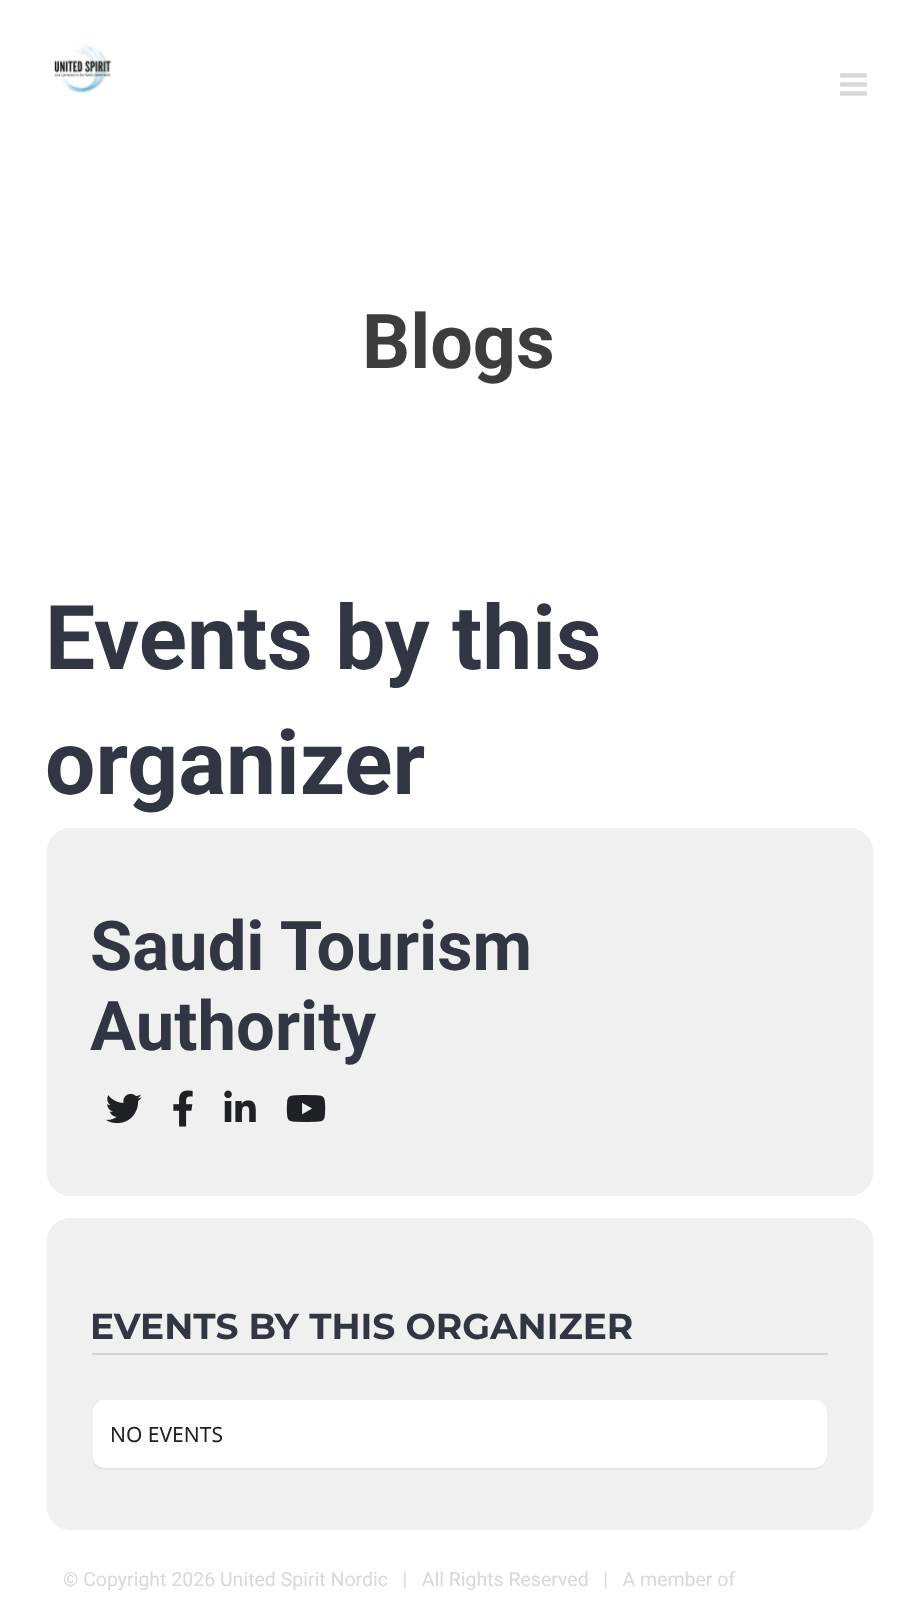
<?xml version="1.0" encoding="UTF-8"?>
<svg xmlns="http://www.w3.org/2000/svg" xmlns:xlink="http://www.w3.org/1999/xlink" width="916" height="1619">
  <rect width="100%" height="100%" fill="#ffffff" />
  <image x="54" y="41" width="58" height="53" xlink:href="image1.png" />
  <image x="840" y="73" width="27" height="23" xlink:href="image2.png" />
  <rect x="47" y="828" width="826" height="368" rx="23" fill="#f0f0f0" />
  <image x="105" y="1093" width="37" height="31" xlink:href="image3.png" />
  <image x="173" y="1090" width="20" height="37" xlink:href="image4.png" />
  <image x="224" y="1090" width="32" height="32" xlink:href="image5.png" />
  <image x="286" y="1095" width="40" height="27" xlink:href="image6.png" />
  <rect x="47" y="1218" width="826" height="312" rx="23" fill="#f0f0f0" />
  <rect x="92" y="1353" width="736" height="2" fill="#d4d4d4" />
  <path d="M 812 1470 c 9 0 15 -7 15 -15 c 0 7 -6 13 -15 13 h -706 c -8 0 -14 -6 -14 -13 c 0 9 4 15 14 15 z m -706 -70 c -8 0 -14 6 -14 14 c 0 -9 5 -14 14 -14 z" fill="#e5e5e5" fill-rule="evenodd" />
  <path d="M 104 1400 h 712 c 7 2 11 8 11 14 v 41 c 0 7 -6 13 -15 13 h -706 c -6 0 -11 -3 -13 -9 v -49 c 1 -5 5 -8 8 -10 z" fill="#ffffff" />
  <text x="362" y="368" style="font-family: Roboto; font-size: 75.5px; font-weight: bold; fill: #3d3d3d">Blogs</text>
  <text x="45" y="669" style="font-family: Roboto; font-size: 89.25px; font-weight: bold; fill: #323643">Events by this</text>
  <text x="45" y="794" style="font-family: Roboto; font-size: 89.25px; font-weight: bold; fill: #323643">organizer</text>
  <text x="90" y="970" style="font-family: Roboto; font-size: 68.75px; font-weight: bold; fill: #323643">Saudi Tourism</text>
  <text x="90" y="1050" style="font-family: Roboto; font-size: 68.75px; font-weight: bold; fill: #323643">Authority</text>
  <text x="90" y="1339" style="font-family: Montserrat; font-size: 36px; font-weight: bold; fill: #323643">EVENTS BY THIS ORGANIZER</text>
  <text x="110" y="1442" style="font-family: Noto Sans; font-size: 21px; fill: #202124">NO EVENTS</text>
  <text x="63" y="1586" style="font-family: Roboto; font-size: 19.5px; fill: #d8d8d8" xml:space="preserve">© Copyright 2026 United Spirit Nordic   |   All Rights Reserved   |   A member of</text>
</svg>
